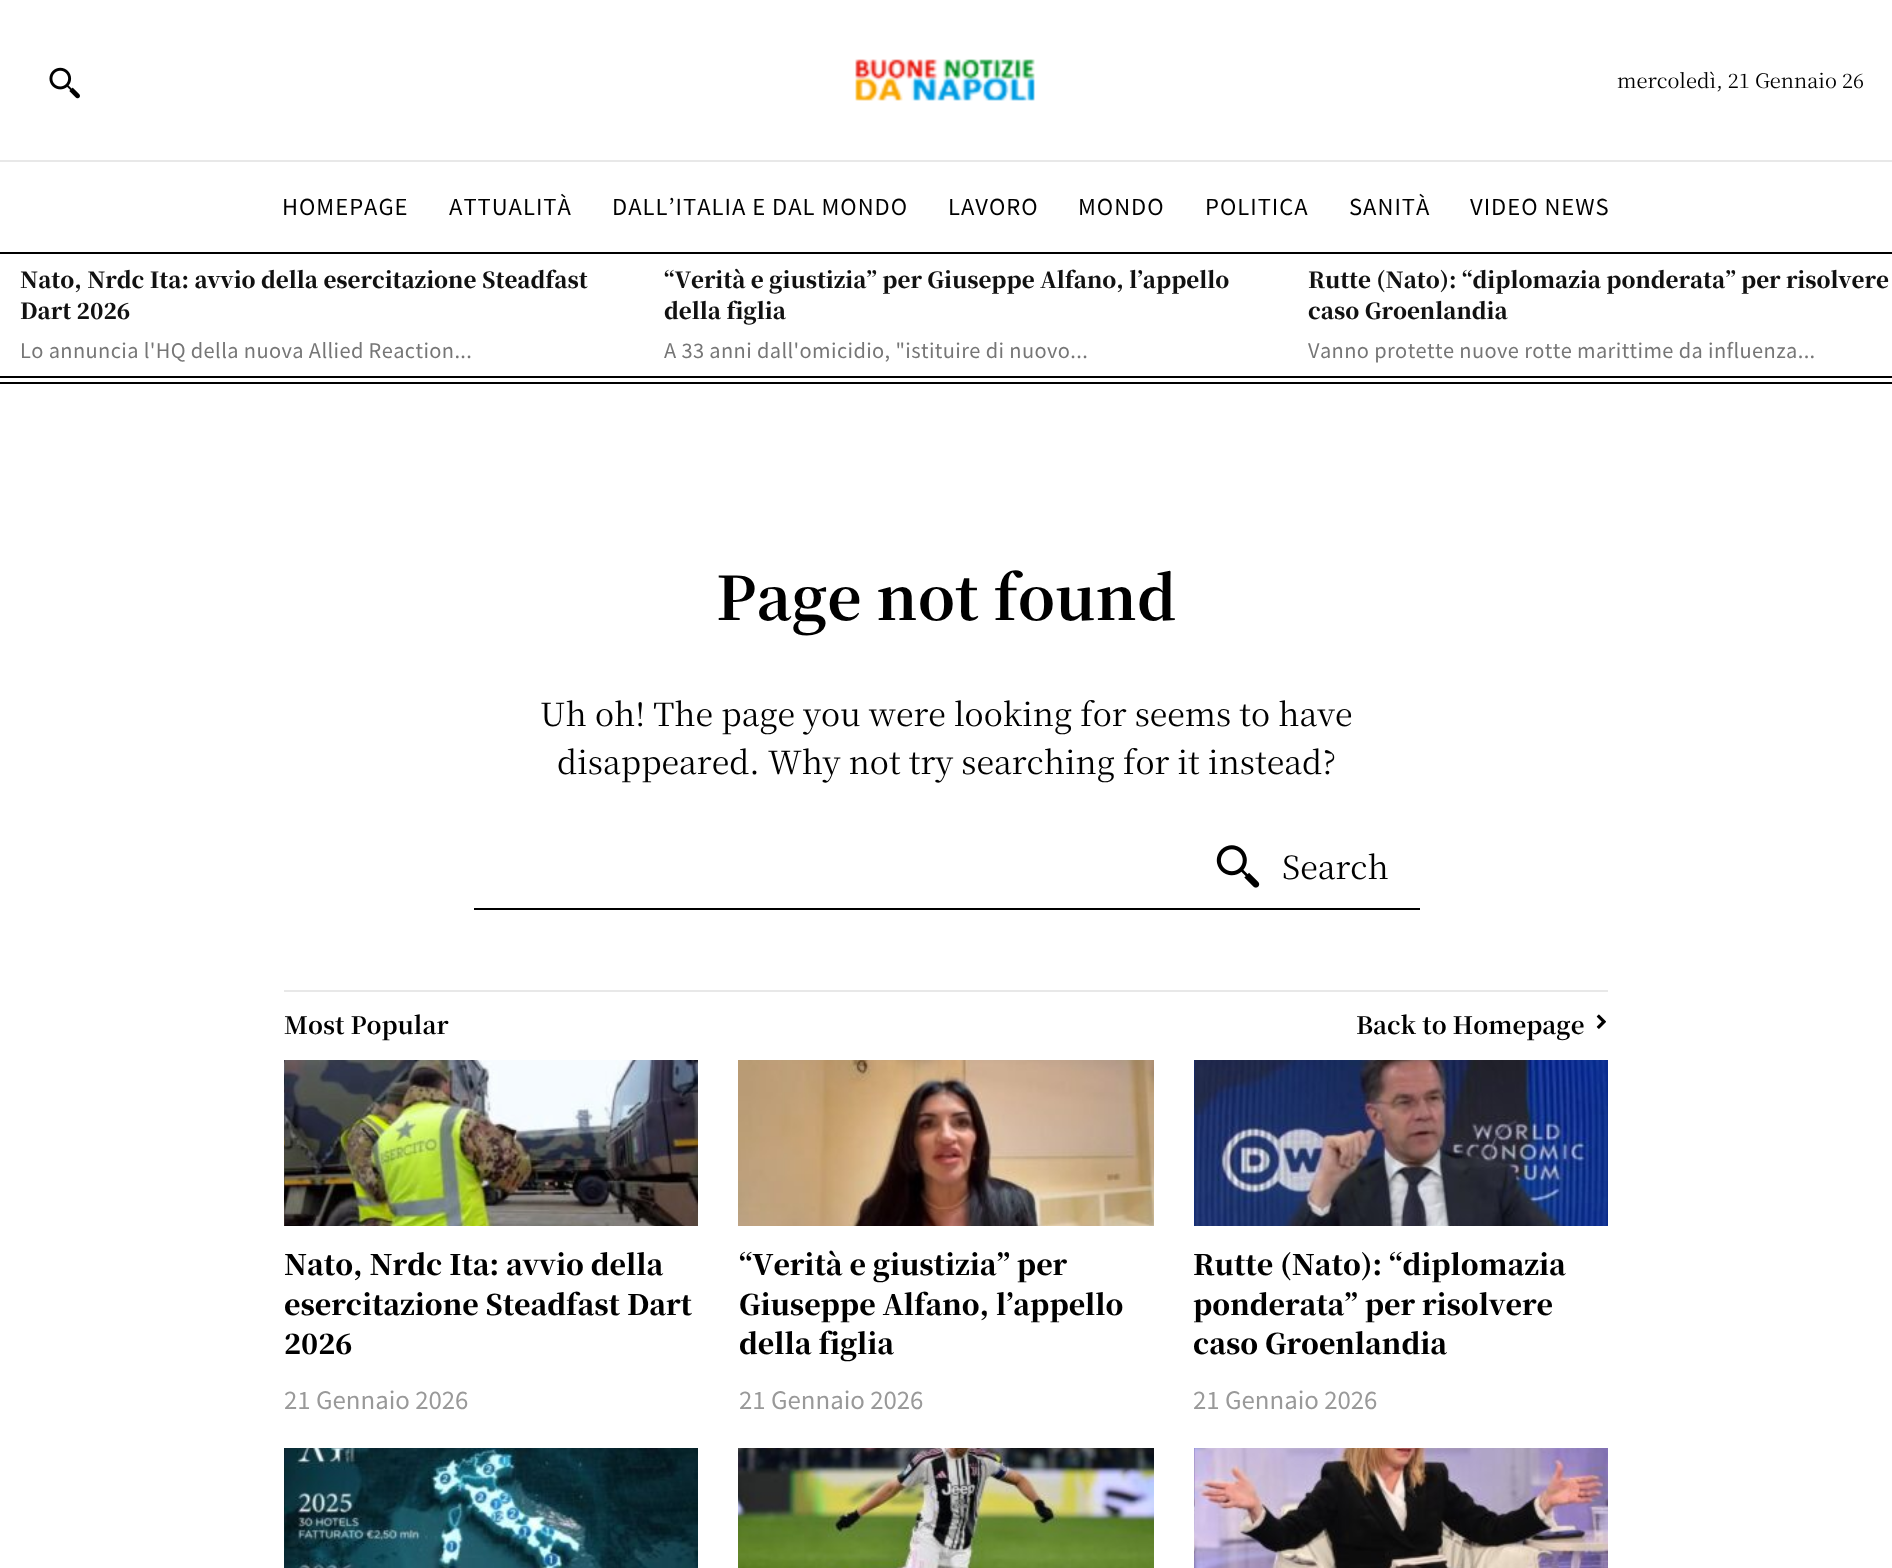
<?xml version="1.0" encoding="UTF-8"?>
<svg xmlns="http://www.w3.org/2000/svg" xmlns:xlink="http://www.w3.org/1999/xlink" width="1892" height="1568">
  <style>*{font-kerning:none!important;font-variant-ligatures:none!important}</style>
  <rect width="100%" height="100%" fill="#ffffff" />
  <image x="49" y="67" width="31" height="32" xlink:href="image1.png" />
  <image x="855" y="59" width="180" height="42" xlink:href="image2.png" />
  <rect y="160" width="1892" height="2" fill="#e8e8e8" />
  <rect y="252" width="1892" height="2" fill="#000000" />
  <rect y="382" width="1892" height="2" fill="#000000" />
  <rect y="376" width="1892" height="2" fill="#000000" />
  <image x="1216" y="845" width="44" height="43" xlink:href="image3.png" />
  <rect x="474" y="908" width="946" height="2" fill="#000000" />
  <rect x="284" y="990" width="1324" height="2" fill="#e8e8e8" />
  <image x="1596" y="1014" width="10" height="15" xlink:href="image4.png" />
  <image x="284" y="1060" width="414" height="166" xlink:href="image5.png" />
  <image x="738" y="1060" width="416" height="166" xlink:href="image6.png" />
  <image x="1194" y="1060" width="414" height="166" xlink:href="image7.png" />
  <image x="284" y="1448" width="414" height="120" xlink:href="image8.png" />
  <image x="738" y="1448" width="416" height="120" xlink:href="image9.png" />
  <image x="1194" y="1448" width="414" height="120" xlink:href="image10.png" />
  <text x="1617" y="88" style="font-family: Noto Serif JP; font-size: 20px; fill: #000000">mercoledì, 21 Gennaio 26</text>
  <text x="282" y="215" style="font-family: Noto Sans JP; font-size: 22px; font-weight: 100; letter-spacing: 1px; fill: #000000">HOMEPAGE</text>
  <text x="449" y="215" style="font-family: Noto Sans JP; font-size: 22px; font-weight: 100; letter-spacing: 1px; fill: #000000">ATTUALITÀ</text>
  <text x="612" y="215" style="font-family: Noto Sans JP; font-size: 22px; font-weight: 100; letter-spacing: 1px; fill: #000000">DALL’ITALIA E DAL MONDO</text>
  <text x="948" y="215" style="font-family: Noto Sans JP; font-size: 22px; font-weight: 100; letter-spacing: 1px; fill: #000000">LAVORO</text>
  <text x="1078" y="215" style="font-family: Noto Sans JP; font-size: 22px; font-weight: 100; letter-spacing: 1px; fill: #000000">MONDO</text>
  <text x="1205" y="215" style="font-family: Noto Sans JP; font-size: 22px; font-weight: 100; letter-spacing: 1px; fill: #000000">POLITICA</text>
  <text x="1349" y="215" style="font-family: Noto Sans JP; font-size: 22px; font-weight: 100; letter-spacing: 1px; fill: #000000">SANITÀ</text>
  <text x="1470" y="215" style="font-family: Noto Sans JP; font-size: 22px; font-weight: 100; letter-spacing: 1px; fill: #000000">VIDEO NEWS</text>
  <text x="20" y="288" style="font-family: Noto Serif JP; font-size: 22px; font-weight: 900; fill: #111111">Nato, Nrdc Ita: avvio della esercitazione</text>
  <text x="482" y="288" style="font-family: Noto Serif JP; font-size: 22px; font-weight: 900; fill: #111111">Steadfast</text>
  <text x="20" y="319" style="font-family: Noto Serif JP; font-size: 22px; font-weight: 900; fill: #111111">Dart 2026</text>
  <text x="20" y="358" style="font-family: Noto Sans JP; font-size: 20px; font-weight: 100; letter-spacing: 0.4px; fill: #767676">Lo annuncia l'HQ della nuova Allied Reaction...</text>
  <text x="664" y="288" style="font-family: Noto Serif JP; font-size: 22px; font-weight: 900; fill: #111111">“Verità e giustizia” per Giuseppe Alfano, l’appello</text>
  <text x="664" y="319" style="font-family: Noto Serif JP; font-size: 22px; font-weight: 900; fill: #111111">della figlia</text>
  <text x="664" y="358" style="font-family: Noto Sans JP; font-size: 20px; font-weight: 100; letter-spacing: 0.4px; fill: #767676">A 33 anni dall'omicidio, "istituire di nuovo...</text>
  <text x="1308" y="288" style="font-family: Noto Serif JP; font-size: 22px; font-weight: 900; fill: #111111">Rutte (Nato): “diplomazia ponderata”</text>
  <text x="1741" y="288" style="font-family: Noto Serif JP; font-size: 22px; font-weight: 900; fill: #111111">per risolvere</text>
  <text x="1308" y="319" style="font-family: Noto Serif JP; font-size: 22px; font-weight: 900; fill: #111111">caso Groenlandia</text>
  <text x="1308" y="358" style="font-family: Noto Sans JP; font-size: 20px; font-weight: 100; letter-spacing: 0.4px; fill: #767676">Vanno protette nuove rotte</text>
  <text x="1577" y="358" style="font-family: Noto Sans JP; font-size: 20px; font-weight: 100; letter-spacing: 0.4px; fill: #767676">marittime da influenza...</text>
  <text x="716" y="620" style="font-family: Noto Serif JP; font-size: 60px; font-weight: bold; fill: #000000">Page not found</text>
  <text x="540" y="726" style="font-family: Noto Serif JP; font-size: 32px; fill: #000000">Uh oh! The page you were looking for seems to have</text>
  <text x="557" y="774" style="font-family: Noto Serif JP; font-size: 32px; fill: #000000">disappeared. Why not try searching for it instead?</text>
  <text x="1282" y="879" style="font-family: Noto Serif JP; font-size: 32px; fill: #000000">Search</text>
  <text x="284" y="1034" style="font-family: Noto Serif JP; font-size: 24px; font-weight: bold; fill: #000000">Most Popular</text>
  <text x="1356" y="1034" style="font-family: Noto Serif JP; font-size: 24px; font-weight: bold; fill: #000000">Back to Homepage</text>
  <text x="284" y="1275" style="font-family: Noto Serif JP; font-size: 28px; font-weight: 900; fill: #000000">Nato, Nrdc Ita: avvio della</text>
  <text x="284" y="1315" style="font-family: Noto Serif JP; font-size: 28px; font-weight: 900; fill: #000000">esercitazione Steadfast Dart</text>
  <text x="284" y="1354" style="font-family: Noto Serif JP; font-size: 28px; font-weight: 900; fill: #000000">2026</text>
  <text x="284" y="1409" style="font-family: Noto Sans JP; font-size: 24px; font-weight: 100; fill: #999999">21 Gennaio 2026</text>
  <text x="739" y="1275" style="font-family: Noto Serif JP; font-size: 28px; font-weight: 900; fill: #000000">“Verità e giustizia” per</text>
  <text x="739" y="1315" style="font-family: Noto Serif JP; font-size: 28px; font-weight: 900; fill: #000000">Giuseppe Alfano, l’appello</text>
  <text x="739" y="1354" style="font-family: Noto Serif JP; font-size: 28px; font-weight: 900; fill: #000000">della figlia</text>
  <text x="739" y="1409" style="font-family: Noto Sans JP; font-size: 24px; font-weight: 100; fill: #999999">21 Gennaio 2026</text>
  <text x="1193" y="1275" style="font-family: Noto Serif JP; font-size: 28px; font-weight: 900; fill: #000000">Rutte (Nato): “diplomazia</text>
  <text x="1193" y="1315" style="font-family: Noto Serif JP; font-size: 28px; font-weight: 900; fill: #000000">ponderata” per risolvere</text>
  <text x="1193" y="1354" style="font-family: Noto Serif JP; font-size: 28px; font-weight: 900; fill: #000000">caso Groenlandia</text>
  <text x="1193" y="1409" style="font-family: Noto Sans JP; font-size: 24px; font-weight: 100; fill: #999999">21 Gennaio 2026</text>
</svg>
